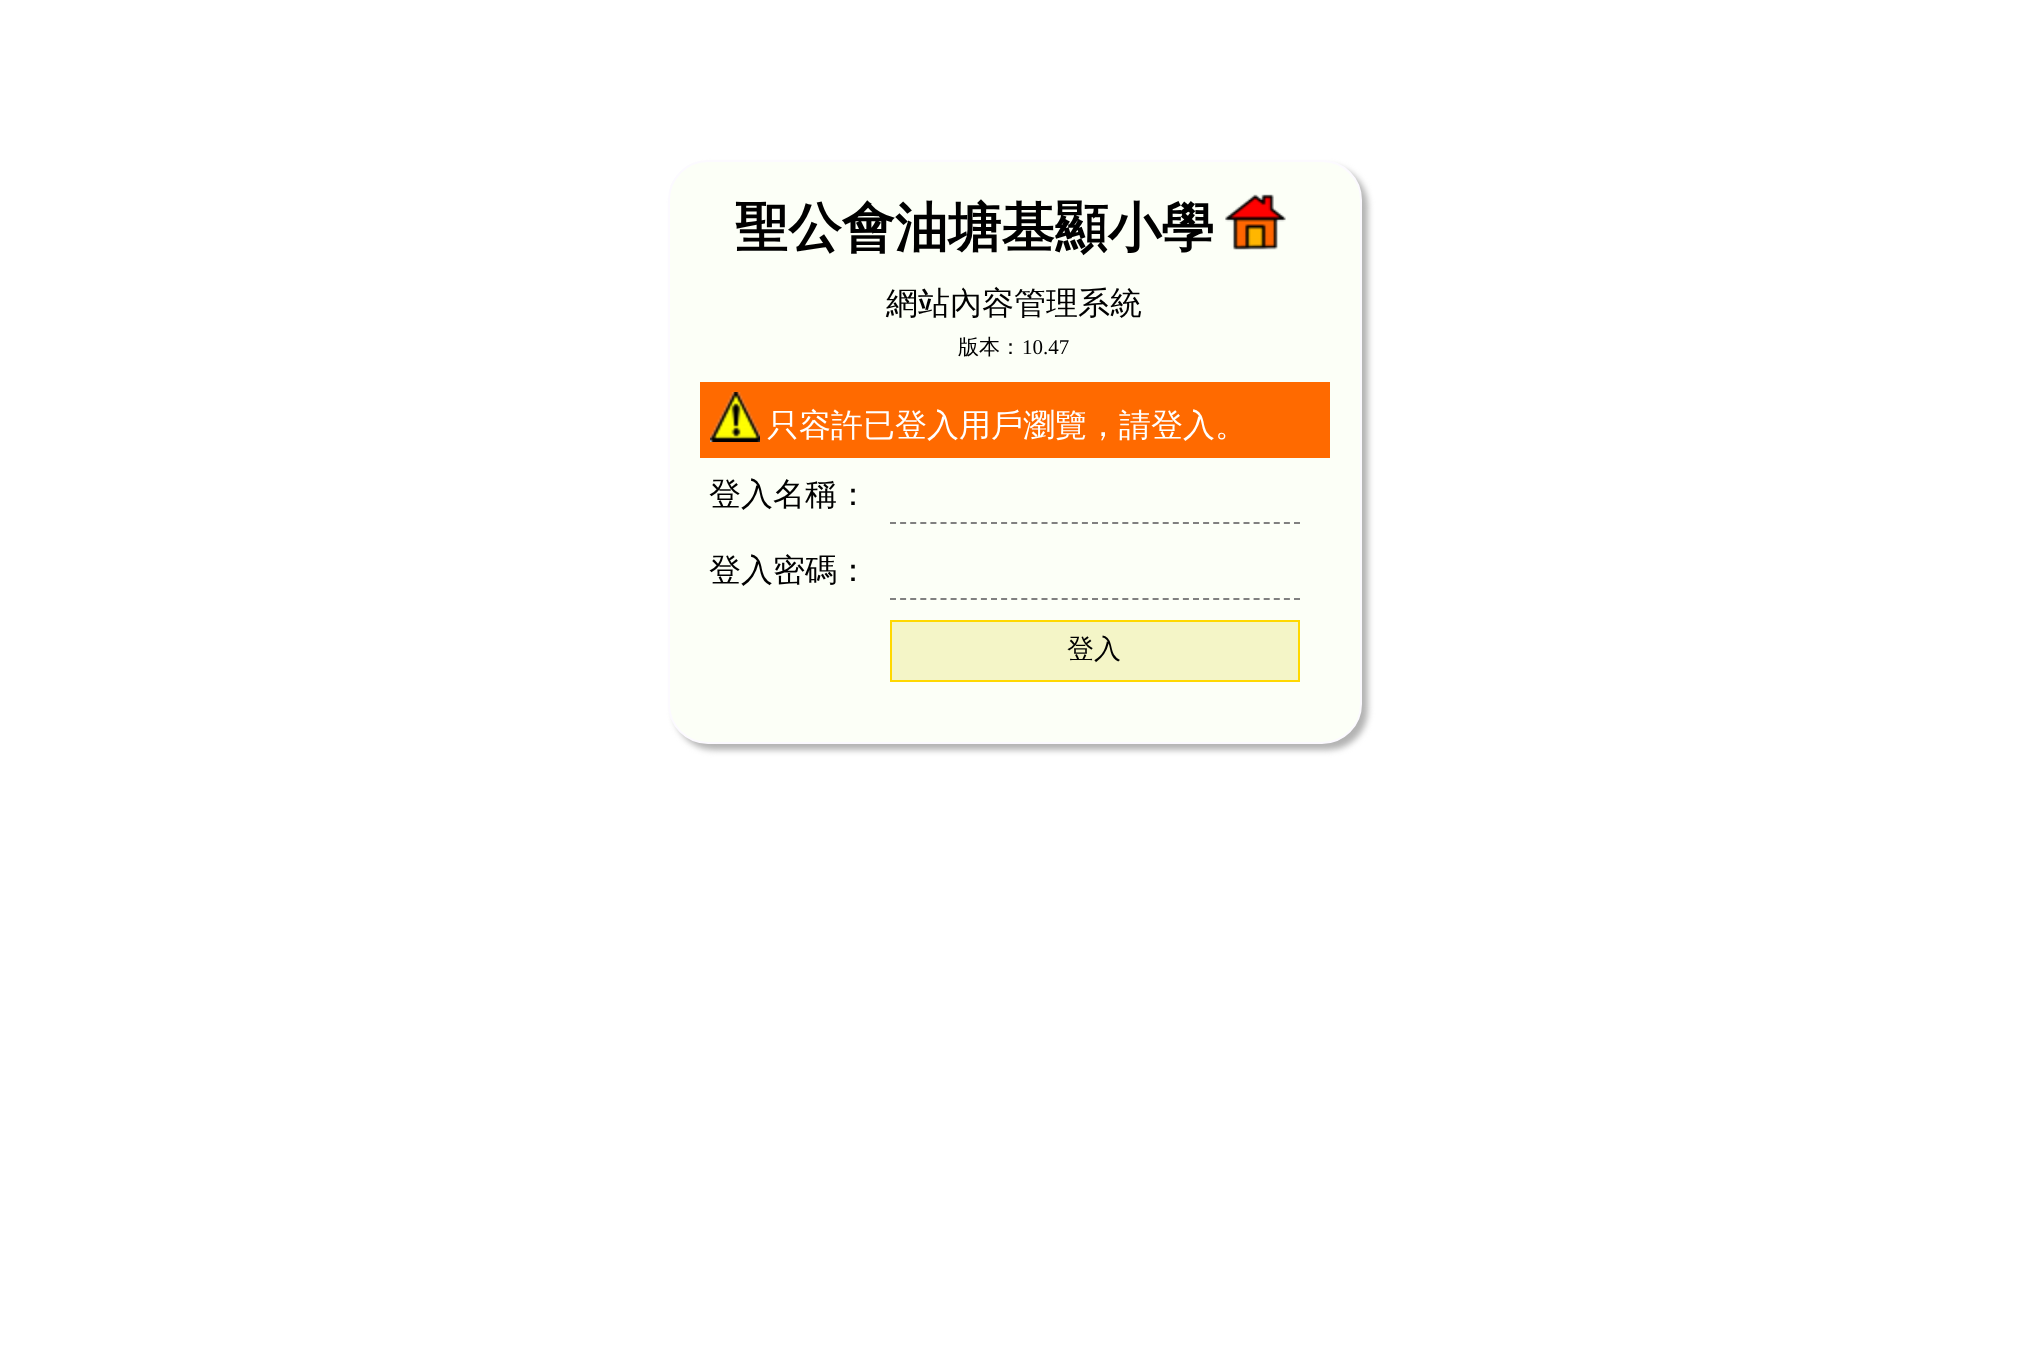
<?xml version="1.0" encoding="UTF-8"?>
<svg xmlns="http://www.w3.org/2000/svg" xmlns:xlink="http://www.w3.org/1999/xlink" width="2028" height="1356">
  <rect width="100%" height="100%" fill="#ffffff" />
  <rect x="674" y="166" width="694" height="584" rx="40" fill="#b3b3b3" filter="blur(3px)" />
  <rect x="669" y="161" width="692" height="582" rx="39" fill="#fcfff7" stroke="#fcfaff" stroke-width="2" />
  <image x="1225" y="194" width="61" height="56" xlink:href="image1.png" />
  <rect x="700" y="382" width="630" height="76" fill="#ff6a00" />
  <image x="710" y="392" width="50" height="50" xlink:href="image2.png" />
  <path d="M 890 523 h 410" fill="none" stroke="#808080" stroke-width="2" stroke-dasharray="6 4.1" />
  <path d="M 890 599 h 410" fill="none" stroke="#808080" stroke-width="2" stroke-dasharray="6 4.1" />
  <rect x="891" y="621" width="408" height="60" fill="#f4f5c7" stroke="#ffd800" stroke-width="2" />
  <text x="735" y="246" style="font-family: WenQuanYi Zen Hei; font-size: 53.25px; font-weight: bold; fill: #000000">聖公會油塘基顯小學</text>
  <text x="886" y="314" style="font-family: WenQuanYi Zen Hei; font-size: 32px; font-weight: 500; fill: #000000">網站內容管理系統</text>
  <text x="958" y="354" style="font-family: WenQuanYi Zen Hei; font-size: 21px; font-weight: 500; fill: #000000">版本：</text>
  <text x="1022" y="354" style="font-family: Liberation Serif; font-size: 21px; fill: #000000">10.47</text>
  <text x="767" y="436" style="font-family: WenQuanYi Zen Hei; font-size: 32px; font-weight: 500; fill: #ffffff">只容許已登入用戶瀏覽，請登入。</text>
  <text x="709" y="505" style="font-family: WenQuanYi Zen Hei; font-size: 32px; font-weight: 500; fill: #000000">登入名稱：</text>
  <text x="709" y="581" style="font-family: WenQuanYi Zen Hei; font-size: 32px; font-weight: 500; fill: #000000">登入密碼：</text>
  <text x="1067" y="658" style="font-family: WenQuanYi Zen Hei; font-size: 27px; font-weight: 500; fill: #000000">登入</text>
</svg>
